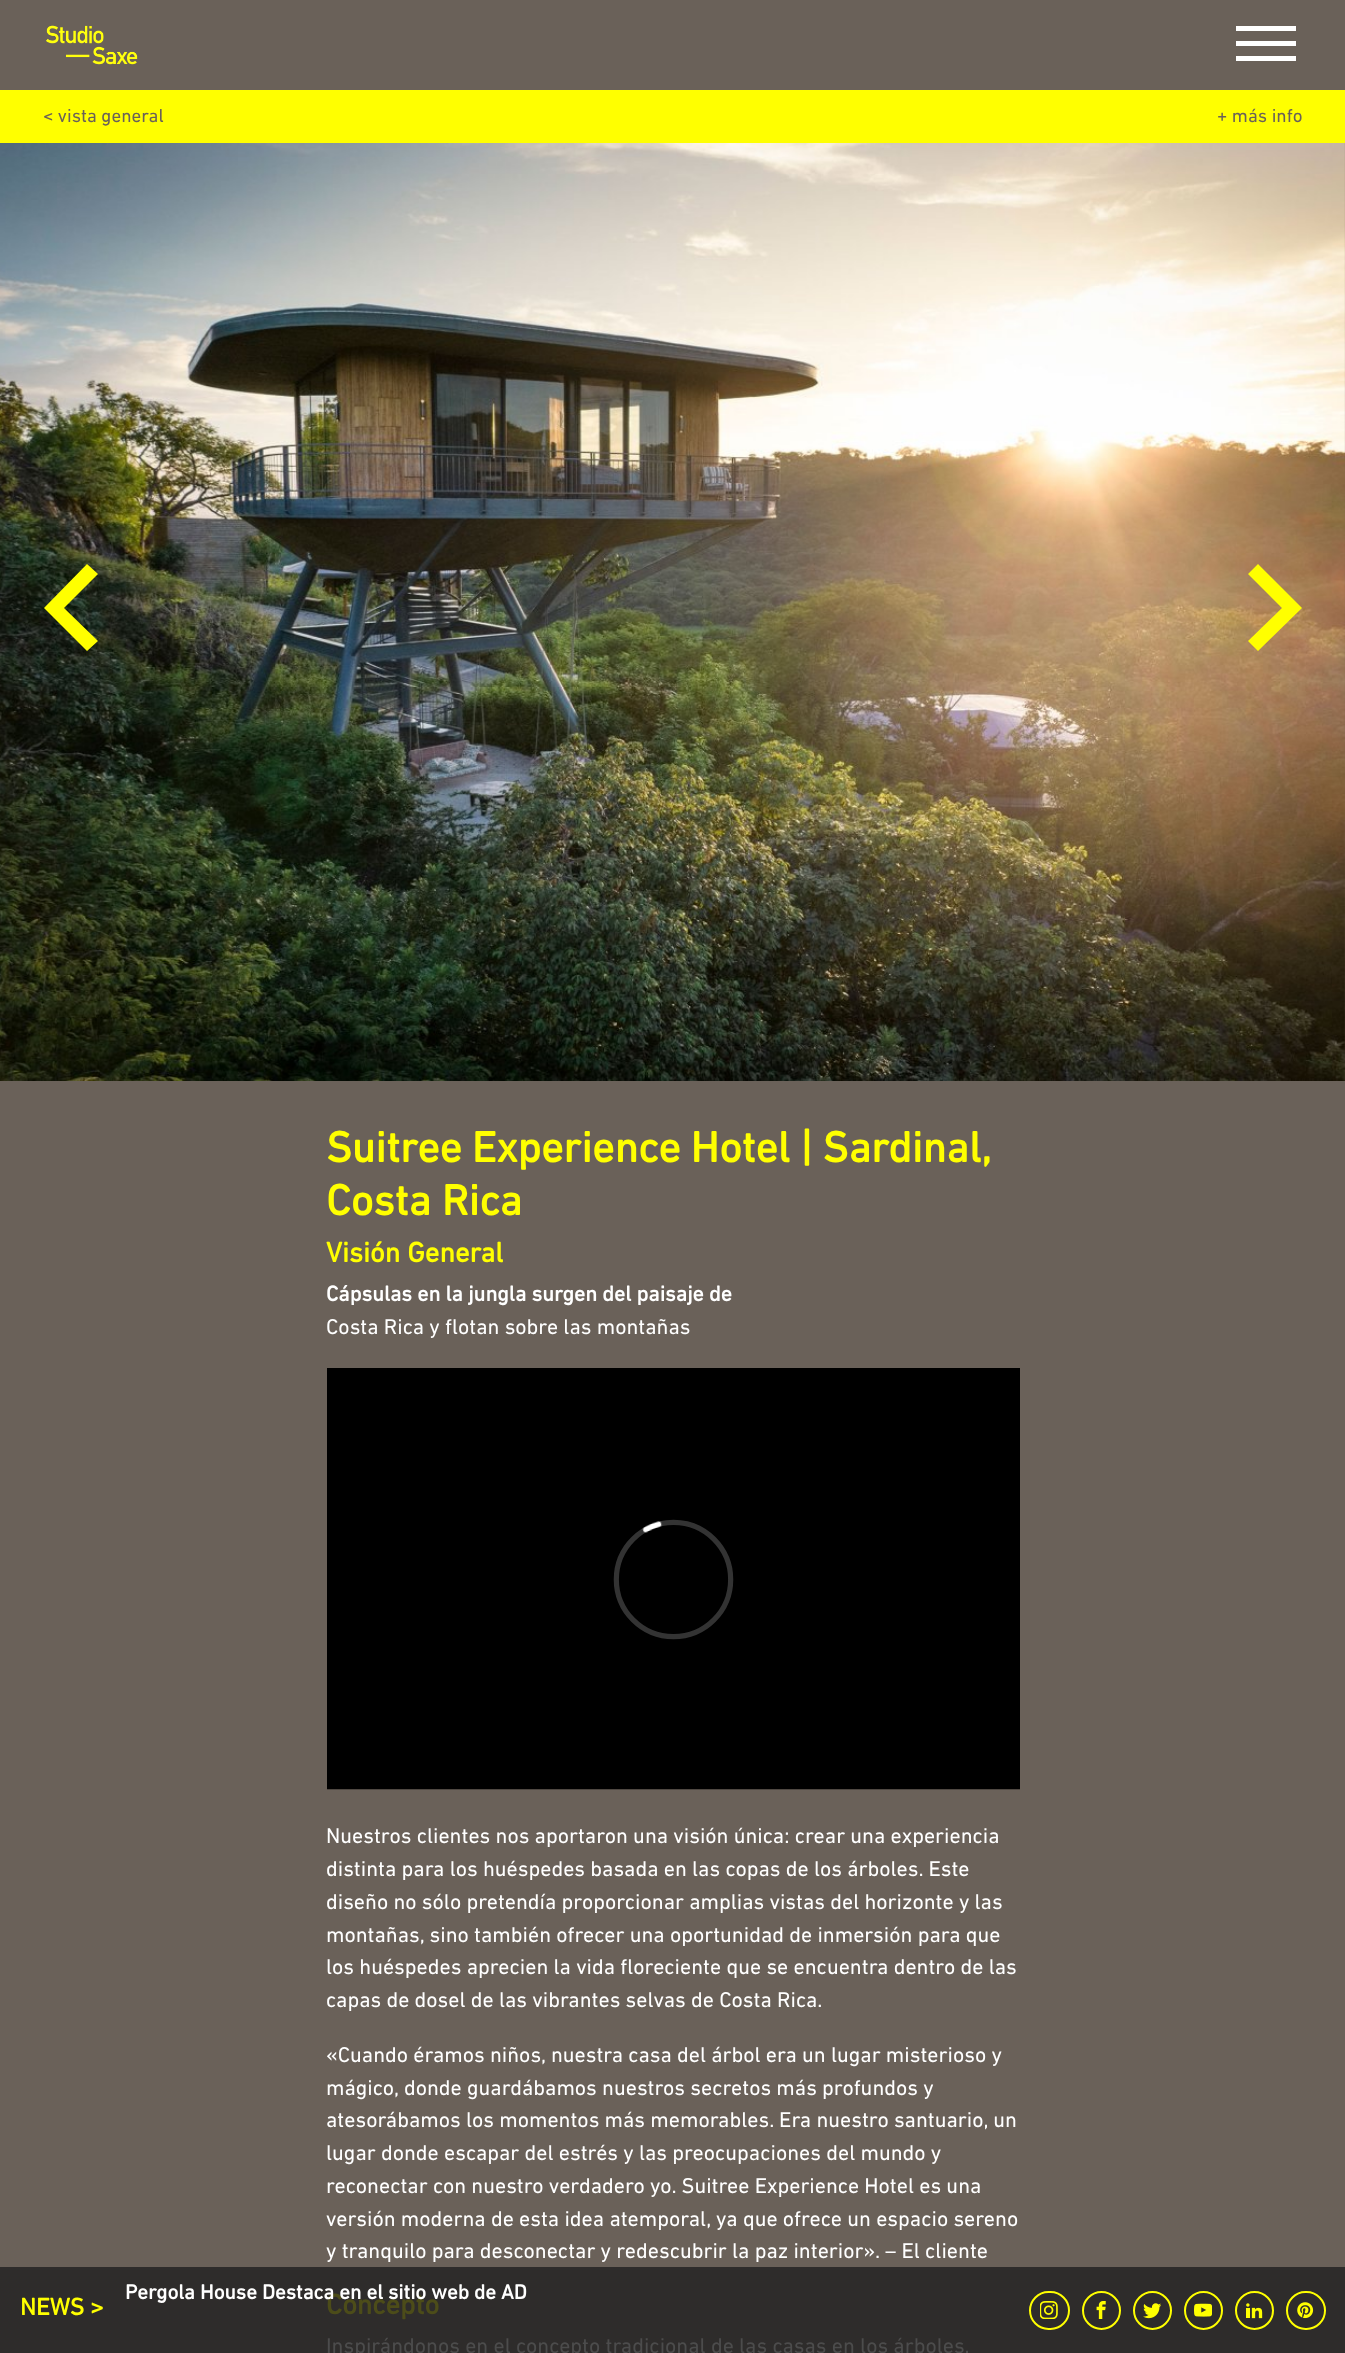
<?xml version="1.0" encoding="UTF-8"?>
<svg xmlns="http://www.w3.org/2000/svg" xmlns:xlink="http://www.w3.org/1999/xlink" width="1345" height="2353">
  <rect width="100%" height="100%" fill="#6a6159" />
  <rect y="2267" width="1345" height="86" fill="#2e2c2b" />
  <image x="46" y="25" width="92" height="40" xlink:href="image1.png" />
  <rect x="1236" y="41" width="60" height="5" fill="#ffffff" />
  <rect x="1236" y="26" width="60" height="5" fill="#ffffff" />
  <rect x="1236" y="56" width="60" height="5" fill="#ffffff" />
  <rect y="90" width="1345" height="53" fill="#ffff00" />
  <image x="0" y="143" width="1345" height="938" xlink:href="image2.png" />
  <path d="M 98 641 l -11 10 l -43 -43 l 43 -44 l 11 10 l -34 34 z" fill="#ffff00" />
  <path d="M 1248 574 l 10 -10 l 44 44 l -44 43 l -10 -10 l 34 -33 z" fill="#ffff00" />
  <image x="327" y="1368" width="693" height="422" xlink:href="image3.png" />
  <rect x="1030" y="2292" width="39" height="37" rx="18.5" fill="none" stroke="#ffff00" stroke-width="2" />
  <image x="1040" y="2301" width="18" height="18" xlink:href="image4.png" />
  <circle cx="1101.5" cy="2310.5" r="18.5" fill="none" stroke="#ffff00" stroke-width="2" />
  <image x="1096" y="2301" width="10" height="18" xlink:href="image5.png" />
  <circle cx="1152.5" cy="2310.5" r="18.5" fill="none" stroke="#ffff00" stroke-width="2" />
  <image x="1143" y="2303" width="18" height="16" xlink:href="image6.png" />
  <circle cx="1203.5" cy="2310.5" r="18.5" fill="none" stroke="#ffff00" stroke-width="2" />
  <image x="1194" y="2303" width="18" height="14" xlink:href="image7.png" />
  <circle cx="1254.5" cy="2310.5" r="18.5" fill="none" stroke="#ffff00" stroke-width="2" />
  <image x="1246" y="2303" width="17" height="16" xlink:href="image8.png" />
  <rect x="1287" y="2292" width="38" height="37" rx="18.5" fill="none" stroke="#ffff00" stroke-width="2" />
  <image x="1297" y="2302" width="17" height="17" xlink:href="image9.png" />
  <text x="43" y="122" style="font-family: DIN Next; font-size: 19px; fill: #6a6159">&lt; vista general</text>
  <text x="1217" y="122" style="font-family: DIN Next; font-size: 19px; fill: #6a6159">+ más info</text>
  <text x="326" y="1162" word-spacing="-0.5" style="font-family: DIN Next; font-size: 43.7px; font-weight: bold; fill: #ffff00">Suitree Experience Hotel | Sardinal,</text>
  <text x="326" y="1215" style="font-family: DIN Next; font-size: 43.7px; font-weight: bold; fill: #ffff00">Costa Rica</text>
  <text x="326" y="1262" style="font-family: DIN Next; font-size: 28.5px; font-weight: bold; fill: #ffff00">Visión General</text>
  <text x="326" y="1301" style="font-family: DIN Next; font-size: 21.85px; font-weight: bold; fill: #ffffff">Cápsulas en la jungla surgen del paisaje de</text>
  <text x="326" y="1334" style="font-family: DIN Next; font-size: 21.85px; fill: #ffffff">Costa Rica y flotan sobre las montañas</text>
  <text x="326" y="1843" style="font-family: DIN Next; font-size: 21.85px; fill: #ffffff">Nuestros clientes nos aportaron una visión única: crear una experiencia</text>
  <text x="326" y="1876" style="font-family: DIN Next; font-size: 21.85px; fill: #ffffff">distinta para los huéspedes basada en las copas de los árboles. Este</text>
  <text x="326" y="1909" style="font-family: DIN Next; font-size: 21.85px; fill: #ffffff">diseño no sólo pretendía proporcionar amplias vistas del horizonte y las</text>
  <text x="326" y="1942" style="font-family: DIN Next; font-size: 21.85px; fill: #ffffff">montañas, sino también ofrecer una oportunidad de inmersión para que</text>
  <text x="326" y="1974" style="font-family: DIN Next; font-size: 21.85px; fill: #ffffff">los huéspedes aprecien la vida floreciente que se encuentra dentro de las</text>
  <text x="326" y="2007" style="font-family: DIN Next; font-size: 21.85px; fill: #ffffff">capas de dosel de las vibrantes selvas de Costa Rica.</text>
  <text x="326" y="2062" style="font-family: DIN Next; font-size: 21.85px; fill: #ffffff">«Cuando éramos niños, nuestra casa del árbol era un lugar misterioso y</text>
  <text x="326" y="2095" style="font-family: DIN Next; font-size: 21.85px; fill: #ffffff">mágico, donde guardábamos nuestros secretos más profundos y</text>
  <text x="326" y="2127" style="font-family: DIN Next; font-size: 21.85px; fill: #ffffff">atesorábamos los momentos más memorables. Era nuestro santuario, un</text>
  <text x="326" y="2160" style="font-family: DIN Next; font-size: 21.85px; fill: #ffffff">lugar donde escapar del estrés y las preocupaciones del mundo y</text>
  <text x="326" y="2193" style="font-family: DIN Next; font-size: 21.85px; fill: #ffffff">reconectar con nuestro verdadero yo. Suitree Experience Hotel es una</text>
  <text x="326" y="2226" style="font-family: DIN Next; font-size: 21.85px; fill: #ffffff">versión moderna de esta idea atemporal, ya que ofrece un espacio sereno</text>
  <text x="326" y="2258" style="font-family: DIN Next; font-size: 21.85px; fill: #ffffff">y tranquilo para desconectar y redescubrir la paz interior». – El cliente</text>
  <text x="326" y="2314" style="font-family: DIN Next; font-size: 28.5px; font-weight: bold; fill: #4c4c19">Concepto</text>
  <text x="326" y="2353" style="font-family: DIN Next; font-size: 21.85px; fill: #4c4c4c">Inspirándonos en el concepto tradicional de las casas en los árboles,</text>
  <text x="20" y="2315" style="font-family: DIN Next; font-size: 24.5px; font-weight: bold; fill: #ffff00">NEWS &gt;</text>
  <text x="125" y="2299" style="font-family: DIN Next; font-size: 21px; font-weight: bold; fill: #ffffff">Pergola House Destaca en el sitio web de AD</text>
</svg>
